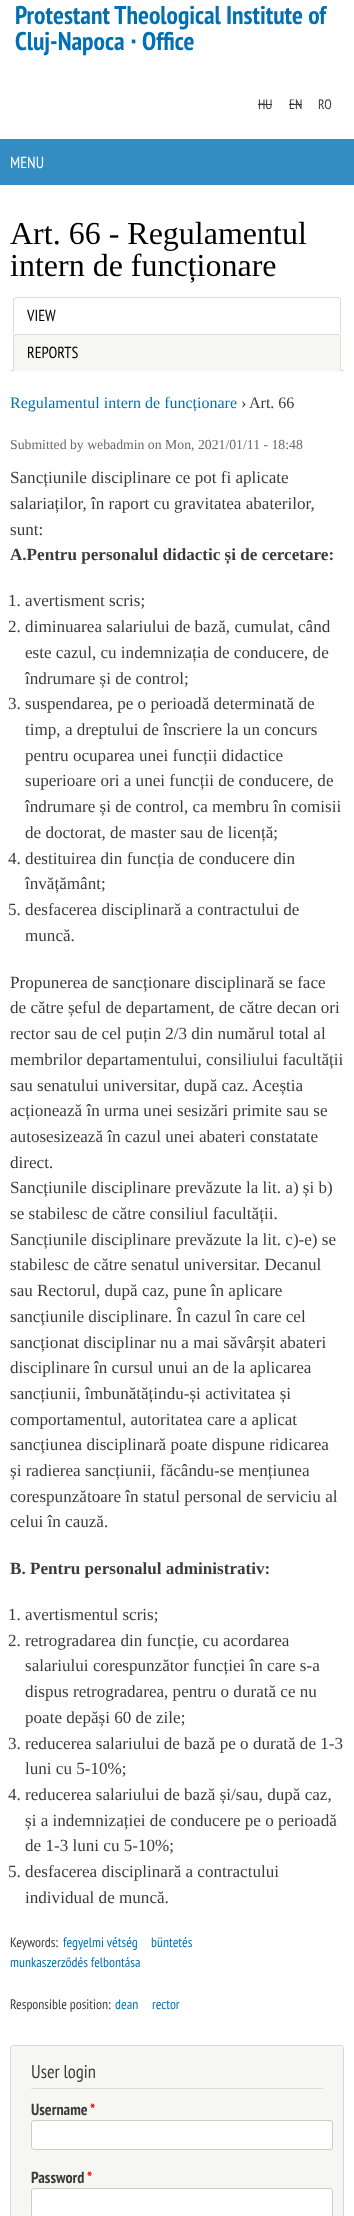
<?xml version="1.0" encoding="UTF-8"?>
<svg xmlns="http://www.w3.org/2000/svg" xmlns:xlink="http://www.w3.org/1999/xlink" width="354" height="2216">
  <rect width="100%" height="100%" fill="#ffffff" />
  <rect x="258" y="104" width="14" height="1" fill="#3b3b3b" />
  <rect x="289" y="104" width="13" height="1" fill="#3b3b3b" />
  <rect y="139" width="354" height="46" fill="#338dc2" />
  <rect x="10" y="370" width="334" height="1" fill="#dddddd" />
  <path d="M 16 297 l -2 1 l 1 1 l 1 -1 h 322 l 1 1 l 1 -1 l -2 -1 z" fill="#dddddd" />
  <path d="M 341 334 v -34 c 0 -1 0 -2 -1 -2 l -0.5 0.5 l 0.5 1.5 v 33 z" fill="#dddddd" />
  <path d="M 341 334 l -1 -1 h -326 l -1 1 z" fill="#ffffff" />
  <path d="M 13 334 l 1 -1 v -33 l 0.5 -1.5 l -0.5 -0.5 c -1 0 -1 1 -1 2 z" fill="#dddddd" />
  <path d="M 16 334 h 322 c 1.5 0 3 1.5 3 3 v 34 h -328 v -34 c 0 -1.5 1.5 -3 3 -3 z" fill="#f6f6f2" />
  <path d="M 16 334 h 322 c 2 0 3 1 3 3 v 34 h -328 v -34 c 0 -2 1 -3 3 -3 z m 0 1 h 322 c 1 0 2 1 2 2 v 34 h -326 v -34 c 0 -1 1 -2 2 -2 z" fill="#dddddd" fill-rule="evenodd" />
  <rect x="10.5" y="2045.5" width="333" height="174" rx="2.5" fill="#f6f6f2" stroke="#d9d9d9" />
  <rect x="31" y="2088" width="292" height="1" fill="#dddddd" />
  <rect x="31.5" y="2120.5" width="301" height="29" rx="2.5" fill="#ffffff" stroke="#cccccc" />
  <rect x="31.5" y="2188.5" width="301" height="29" rx="2.5" fill="#ffffff" stroke="#cccccc" />
  <text x="15" y="24" style="font-family: PT Sans Narrow; font-size: 25.6px; font-weight: bold; fill: #0070b3">Protestant Theological Institute of</text>
  <text x="15" y="50" style="font-family: PT Sans Narrow; font-size: 25.6px; font-weight: bold; fill: #0070b3">Cluj-Napoca</text>
  <text x="130" y="50" style="font-family: Liberation Sans; font-size: 25.6px; font-weight: bold; fill: #0070b3">∙</text>
  <text x="142" y="50" style="font-family: PT Sans Narrow; font-size: 25.6px; font-weight: bold; fill: #0070b3">Office</text>
  <text x="258" y="109" style="font-family: PT Sans Narrow; font-size: 13.75px; fill: #3b3b3b">HU</text>
  <text x="289" y="109" style="font-family: PT Sans Narrow; font-size: 13.75px; fill: #3b3b3b">EN</text>
  <text x="318" y="109" style="font-family: PT Sans Narrow; font-size: 13.75px; fill: #3b3b3b">RO</text>
  <text x="10" y="168" style="font-family: PT Sans Narrow; font-size: 16px; fill: #ffffff">MENU</text>
  <text x="10" y="244" style="font-family: Liberation Serif; font-size: 32px; fill: #000000">Art. 66 - Regulamentul</text>
  <text x="10" y="276" style="font-family: Liberation Serif; font-size: 32px; fill: #000000">intern de funcționare</text>
  <text x="27" y="321" style="font-family: PT Sans Narrow; font-size: 16px; fill: #000000">VIEW</text>
  <text x="27" y="358" style="font-family: PT Sans Narrow; font-size: 16px; fill: #000000">REPORTS</text>
  <text x="10" y="408" style="font-family: Liberation Serif; font-size: 16px; fill: #0070b3">Regulamentul intern de funcționare</text>
  <text x="241" y="408" style="font-family: Liberation Serif; font-size: 16px; fill: #3b3b3b">›</text>
  <text x="249" y="408" style="font-family: Liberation Serif; font-size: 16px; fill: #3b3b3b">Art. 66</text>
  <text x="10" y="449" style="font-family: Liberation Serif; font-size: 13.75px; fill: #68696b">Submitted by webadmin on Mon, 2021/01/11 - 18:48</text>
  <text x="10" y="483" style="font-family: Liberation Serif; font-size: 17.1px; fill: #3b3b3b">Sancțiunile disciplinare ce pot fi aplicate</text>
  <text x="10" y="509" style="font-family: Liberation Serif; font-size: 17.1px; fill: #3b3b3b">salariaților, în raport cu gravitatea abaterilor,</text>
  <text x="10" y="535" style="font-family: Liberation Serif; font-size: 17.1px; fill: #3b3b3b">sunt:</text>
  <text x="10" y="560" style="font-family: Liberation Serif; font-size: 17.1px; font-weight: bold; fill: #3b3b3b">A.Pentru personalul didactic și de cercetare:</text>
  <text x="8" y="606" style="font-family: Liberation Serif; font-size: 17.1px; fill: #3b3b3b">1. avertisment scris;</text>
  <text x="8" y="632" style="font-family: Liberation Serif; font-size: 17.1px; fill: #3b3b3b">2. diminuarea salariului de bază, cumulat, când</text>
  <text x="25" y="658" style="font-family: Liberation Serif; font-size: 17.1px; fill: #3b3b3b">este cazul, cu indemnizația de conducere, de</text>
  <text x="25" y="684" style="font-family: Liberation Serif; font-size: 17.1px; fill: #3b3b3b">îndrumare și de control;</text>
  <text x="8" y="709" style="font-family: Liberation Serif; font-size: 17.1px; fill: #3b3b3b">3. suspendarea, pe o perioadă determinată de</text>
  <text x="25" y="735" style="font-family: Liberation Serif; font-size: 17.1px; fill: #3b3b3b">timp, a dreptului de înscriere la un concurs</text>
  <text x="25" y="761" style="font-family: Liberation Serif; font-size: 17.1px; fill: #3b3b3b">pentru ocuparea unei funcții didactice</text>
  <text x="25" y="786" style="font-family: Liberation Serif; font-size: 17.1px; fill: #3b3b3b">superioare ori a unei funcții de conducere, de</text>
  <text x="25" y="812" style="font-family: Liberation Serif; font-size: 17.1px; fill: #3b3b3b">îndrumare și de control, ca membru în comisii</text>
  <text x="25" y="838" style="font-family: Liberation Serif; font-size: 17.1px; fill: #3b3b3b">de doctorat, de master sau de licență;</text>
  <text x="8" y="864" style="font-family: Liberation Serif; font-size: 17.1px; fill: #3b3b3b">4. destituirea din funcția de conducere din</text>
  <text x="25" y="889" style="font-family: Liberation Serif; font-size: 17.1px; fill: #3b3b3b">învățământ;</text>
  <text x="8" y="915" style="font-family: Liberation Serif; font-size: 17.1px; fill: #3b3b3b">5. desfacerea disciplinară a contractului de</text>
  <text x="25" y="941" style="font-family: Liberation Serif; font-size: 17.1px; fill: #3b3b3b">muncă.</text>
  <text x="10" y="988" style="font-family: Liberation Serif; font-size: 17.1px; fill: #3b3b3b">Propunerea de sancționare disciplinară se face</text>
  <text x="10" y="1013" style="font-family: Liberation Serif; font-size: 17.1px; fill: #3b3b3b">de către șeful de departament, de către decan ori</text>
  <text x="10" y="1039" style="font-family: Liberation Serif; font-size: 17.1px; fill: #3b3b3b">rector sau de cel puțin 2/3 din numărul total al</text>
  <text x="10" y="1065" style="font-family: Liberation Serif; font-size: 17.1px; fill: #3b3b3b">membrilor departamentului, consiliului facultății</text>
  <text x="10" y="1091" style="font-family: Liberation Serif; font-size: 17.1px; fill: #3b3b3b">sau senatului universitar, după caz. Aceștia</text>
  <text x="10" y="1116" style="font-family: Liberation Serif; font-size: 17.1px; fill: #3b3b3b">acționează în urma unei sesizări primite sau se</text>
  <text x="10" y="1142" style="font-family: Liberation Serif; font-size: 17.1px; fill: #3b3b3b">autosesizează în cazul unei abateri constatate</text>
  <text x="10" y="1168" style="font-family: Liberation Serif; font-size: 17.1px; fill: #3b3b3b">direct.</text>
  <text x="10" y="1193" style="font-family: Liberation Serif; font-size: 17.1px; fill: #3b3b3b">Sancțiunile disciplinare prevăzute la lit. a) și b)</text>
  <text x="10" y="1219" style="font-family: Liberation Serif; font-size: 17.1px; fill: #3b3b3b">se stabilesc de către consiliul facultății.</text>
  <text x="10" y="1245" style="font-family: Liberation Serif; font-size: 17.1px; fill: #3b3b3b">Sancțiunile disciplinare prevăzute la lit. c)-e) se</text>
  <text x="10" y="1270" style="font-family: Liberation Serif; font-size: 17.1px; fill: #3b3b3b">stabilesc de către senatul universitar. Decanul</text>
  <text x="10" y="1296" style="font-family: Liberation Serif; font-size: 17.1px; fill: #3b3b3b">sau Rectorul, după caz, pune în aplicare</text>
  <text x="10" y="1322" style="font-family: Liberation Serif; font-size: 17.1px; fill: #3b3b3b">sancțiunile disciplinare. În cazul în care cel</text>
  <text x="10" y="1348" style="font-family: Liberation Serif; font-size: 17.1px; fill: #3b3b3b">sancționat disciplinar nu a mai săvârșit abateri</text>
  <text x="10" y="1373" style="font-family: Liberation Serif; font-size: 17.1px; fill: #3b3b3b">disciplinare în cursul unui an de la aplicarea</text>
  <text x="10" y="1399" style="font-family: Liberation Serif; font-size: 17.1px; fill: #3b3b3b">sancțiunii, îmbunătățindu-și activitatea și</text>
  <text x="10" y="1425" style="font-family: Liberation Serif; font-size: 17.1px; fill: #3b3b3b">comportamentul, autoritatea care a aplicat</text>
  <text x="10" y="1450" style="font-family: Liberation Serif; font-size: 17.1px; fill: #3b3b3b">sancțiunea disciplinară poate dispune ridicarea</text>
  <text x="10" y="1476" style="font-family: Liberation Serif; font-size: 17.1px; fill: #3b3b3b">și radierea sancțiunii, făcându-se mențiunea</text>
  <text x="10" y="1502" style="font-family: Liberation Serif; font-size: 17.1px; fill: #3b3b3b">corespunzătoare în statul personal de serviciu al</text>
  <text x="10" y="1527" style="font-family: Liberation Serif; font-size: 17.1px; fill: #3b3b3b">celui în cauză.</text>
  <text x="10" y="1574" style="font-family: Liberation Serif; font-size: 17.1px; font-weight: bold; fill: #3b3b3b">B. Pentru personalul administrativ:</text>
  <text x="8" y="1620" style="font-family: Liberation Serif; font-size: 17.1px; fill: #3b3b3b">1. avertismentul scris;</text>
  <text x="8" y="1646" style="font-family: Liberation Serif; font-size: 17.1px; fill: #3b3b3b">2. retrogradarea din funcție, cu acordarea</text>
  <text x="25" y="1671" style="font-family: Liberation Serif; font-size: 17.1px; fill: #3b3b3b">salariului corespunzător funcției în care s-a</text>
  <text x="25" y="1697" style="font-family: Liberation Serif; font-size: 17.1px; fill: #3b3b3b">dispus retrogradarea, pentru o durată ce nu</text>
  <text x="25" y="1723" style="font-family: Liberation Serif; font-size: 17.1px; fill: #3b3b3b">poate depăși 60 de zile;</text>
  <text x="8" y="1749" style="font-family: Liberation Serif; font-size: 17.1px; fill: #3b3b3b">3. reducerea salariului de bază pe o durată de 1-3</text>
  <text x="25" y="1774" style="font-family: Liberation Serif; font-size: 17.1px; fill: #3b3b3b">luni cu 5-10%;</text>
  <text x="8" y="1800" style="font-family: Liberation Serif; font-size: 17.1px; fill: #3b3b3b">4. reducerea salariului de bază și/sau, după caz,</text>
  <text x="25" y="1826" style="font-family: Liberation Serif; font-size: 17.1px; fill: #3b3b3b">și a indemnizației de conducere pe o perioadă</text>
  <text x="25" y="1851" style="font-family: Liberation Serif; font-size: 17.1px; fill: #3b3b3b">de 1-3 luni cu 5-10%;</text>
  <text x="8" y="1877" style="font-family: Liberation Serif; font-size: 17.1px; fill: #3b3b3b">5. desfacerea disciplinară a contractului</text>
  <text x="25" y="1903" style="font-family: Liberation Serif; font-size: 17.1px; fill: #3b3b3b">individual de muncă.</text>
  <text x="10" y="1947" style="font-family: PT Sans Narrow; font-size: 13.75px; fill: #3b3b3b">Keywords:</text>
  <text x="63" y="1947" style="font-family: PT Sans Narrow; font-size: 13.75px; fill: #0070b3">fegyelmi vétség</text>
  <text x="151" y="1947" style="font-family: PT Sans Narrow; font-size: 13.75px; fill: #0070b3">büntetés</text>
  <text x="10" y="1967" style="font-family: PT Sans Narrow; font-size: 13.75px; fill: #0070b3">munkaszerződés felbontása</text>
  <text x="10" y="2009" style="font-family: PT Sans Narrow; font-size: 13.75px; fill: #3b3b3b">Responsible position:</text>
  <text x="115" y="2009" style="font-family: PT Sans Narrow; font-size: 13.75px; fill: #0070b3">dean</text>
  <text x="152" y="2009" style="font-family: PT Sans Narrow; font-size: 13.75px; fill: #0070b3">rector</text>
  <text x="31" y="2078" style="font-family: PT Sans Narrow; font-size: 18.5px; fill: #3b3b3b">User login</text>
  <text x="31" y="2115" style="font-family: PT Sans Narrow; font-size: 16px; font-weight: bold; fill: #3b3b3b">Username</text>
  <text x="90" y="2115" style="font-family: PT Sans Narrow; font-size: 16px; font-weight: bold; fill: #ff0000">*</text>
  <text x="31" y="2183" style="font-family: PT Sans Narrow; font-size: 16px; font-weight: bold; fill: #3b3b3b">Password</text>
  <text x="87" y="2183" style="font-family: PT Sans Narrow; font-size: 16px; font-weight: bold; fill: #ff0000">*</text>
</svg>
